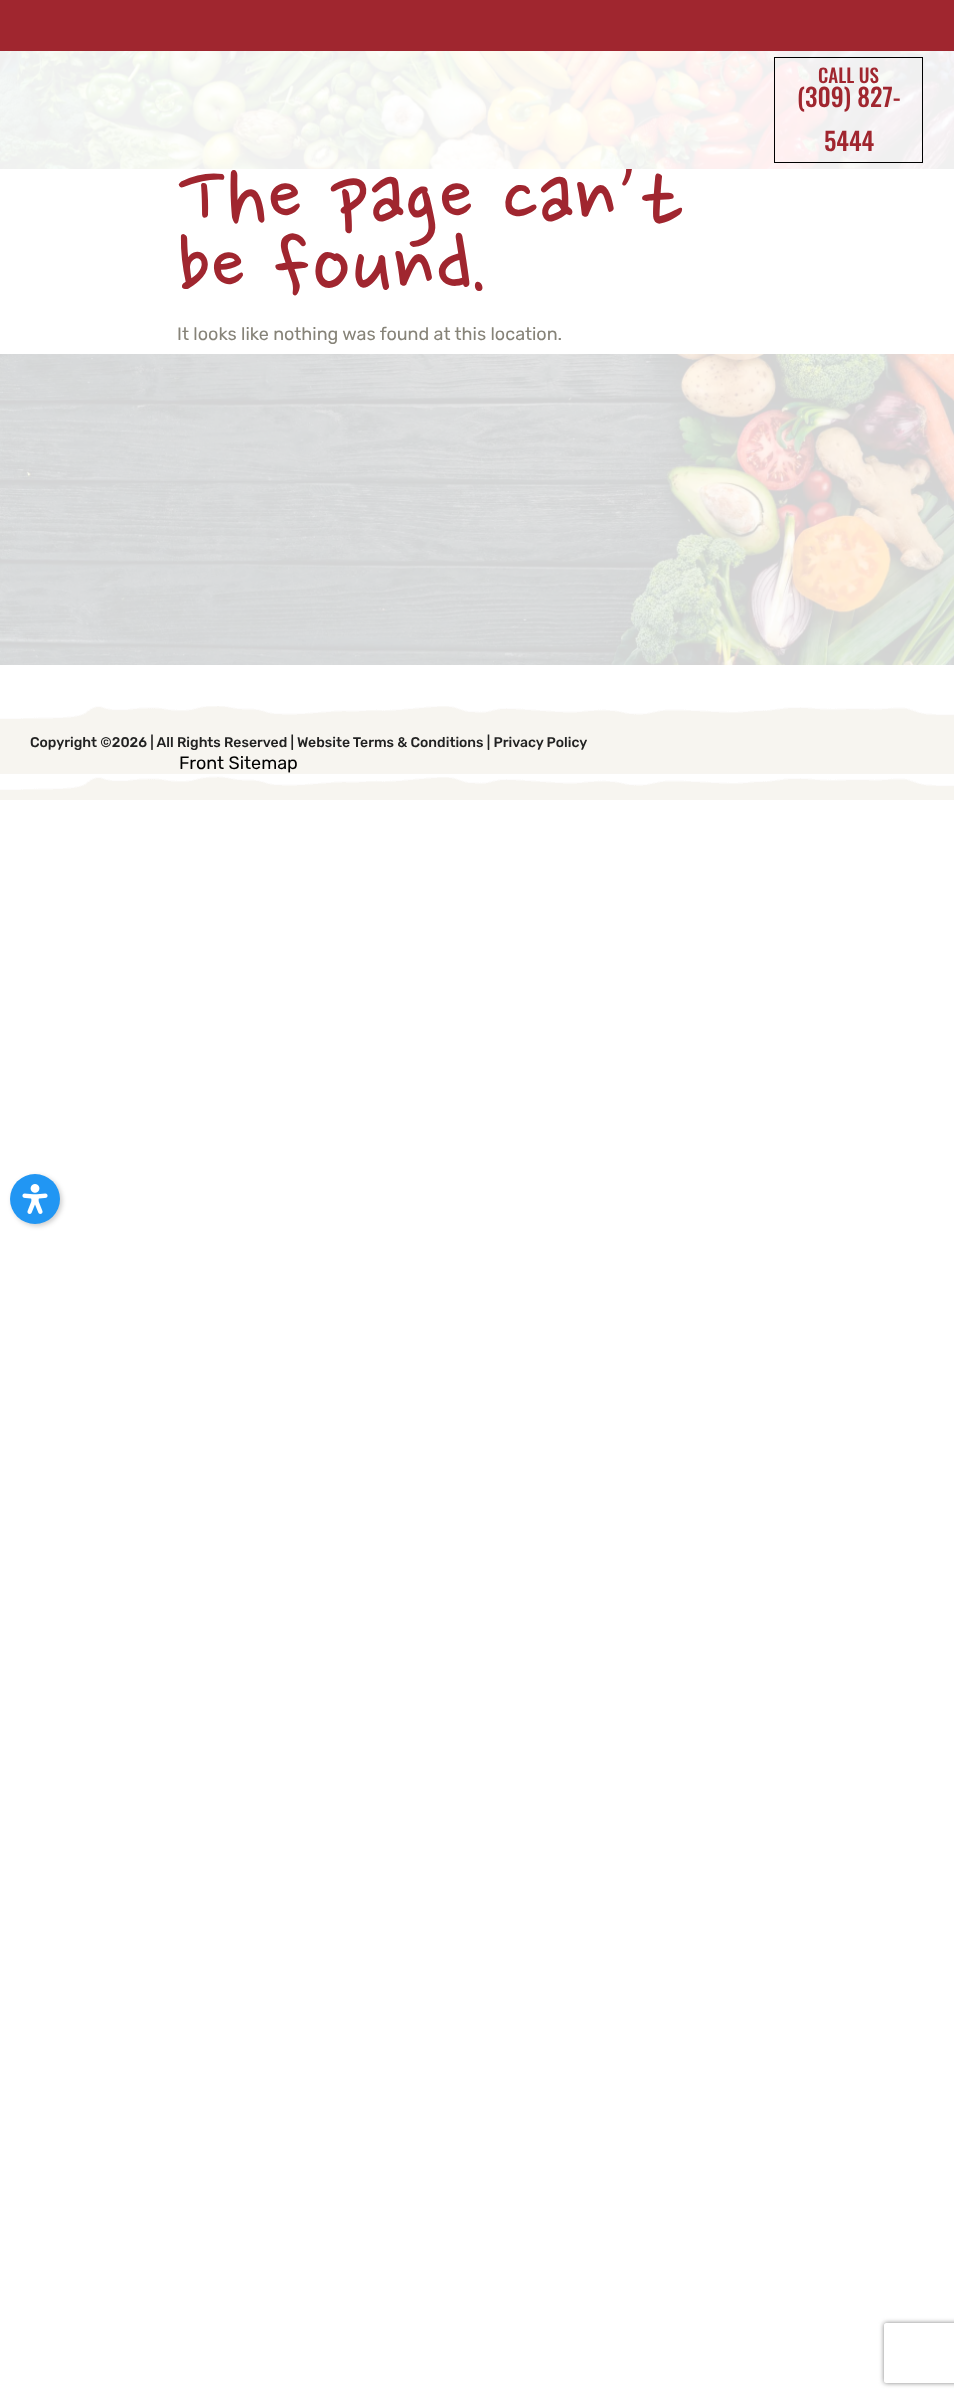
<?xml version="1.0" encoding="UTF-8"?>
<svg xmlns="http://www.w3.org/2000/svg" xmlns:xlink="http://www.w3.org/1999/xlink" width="954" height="2397">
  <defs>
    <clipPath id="clip1"><path d="M 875 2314 h 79 v 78 h -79 z m 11 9 h 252 c 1 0 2 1 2 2 v 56 c 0 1 -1 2 -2 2 h -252 c -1 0 -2 -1 -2 -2 v -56 c 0 -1 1 -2 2 -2 z" clip-rule="evenodd" /></clipPath>
  </defs>
  <rect width="100%" height="100%" fill="#ffffff" />
  <rect width="954" height="51" fill="#a0262f" />
  <image x="0" y="354" width="954" height="311" xlink:href="image2.png" />
  <image x="0" y="706" width="954" height="94" xlink:href="image3.png" />
  <rect x="12" y="1176" width="50" height="50" rx="25" fill="#000000" fill-opacity="0.2" filter="blur(2.5px)" />
  <circle cx="35" cy="1199" r="25" fill="#2196f3" />
  <image x="22" y="1184" width="26" height="30" xlink:href="image4.png" />
  <g clip-path="url(#clip1)">
    <rect x="884" y="2323" width="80" height="60" rx="2" fill="#808080" filter="blur(2.5px)" />
  </g>
  <text x="177" y="232" style="font-family: Nanum Pen; font-size: 100px; fill: #a0262f">The page can’t</text>
  <image x="0" y="51" width="954" height="118" xlink:href="image1.png" />
  <rect x="774.5" y="57.5" width="148" height="105" fill="none" stroke="#000000" />
  <text x="824" y="151" style="font-family: Oswald; font-size: 25px; font-weight: 500; fill: #a0262f">5444</text>
  <text x="797" y="107" style="font-family: Oswald; font-size: 25px; font-weight: 500; fill: #a0262f">(309) 827-</text>
  <text x="818" y="83" style="font-family: Oswald; font-size: 19px; font-weight: 500; fill: #a0262f">CALL US</text>
  <text x="177" y="301" style="font-family: Nanum Pen; font-size: 100px; fill: #a0262f">be found.</text>
  <text x="177" y="340" style="font-family: Rubik; font-size: 18px; fill: #868378">It looks like nothing was found at this location.</text>
  <text x="30" y="747" style="font-family: Rubik; font-size: 14px; font-weight: 500; fill: #222222">Copyright ©2026 | All Rights Reserved | Website Terms &amp; Conditions | Privacy Policy</text>
  <text x="179" y="769" style="font-family: Rubik; font-size: 18px; fill: #000000">Front Sitemap</text>
</svg>
